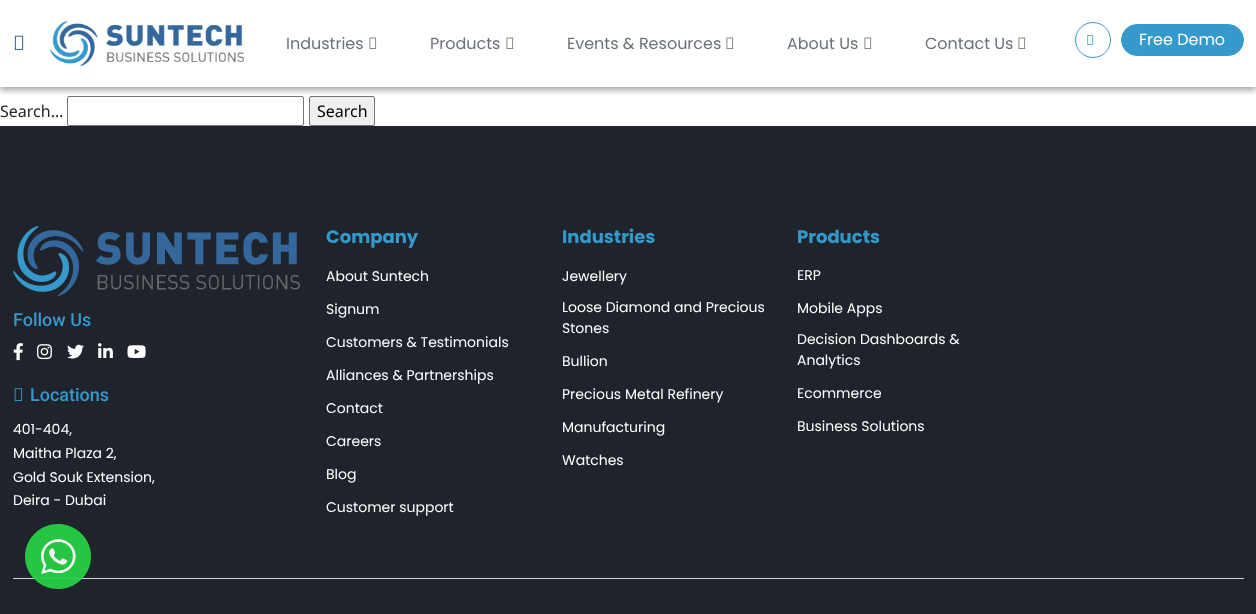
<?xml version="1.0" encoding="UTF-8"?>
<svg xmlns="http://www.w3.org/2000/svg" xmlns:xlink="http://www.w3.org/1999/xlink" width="1256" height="614">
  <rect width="100%" height="100%" fill="#ffffff" />
  <rect x="67.5" y="96.5" width="236" height="29" rx="1.5" fill="none" stroke="#767676" />
  <rect x="309.5" y="96.5" width="65" height="29" rx="1.5" fill="#efefef" stroke="#767676" />
  <rect y="3" width="1256" height="87" fill="#000000" fill-opacity="0.23" filter="blur(3px)" />
  <rect y="3" width="1256" height="87" fill="#000000" fill-opacity="0.16" filter="blur(3px)" />
  <rect width="1256" height="87" fill="#ffffff" />
  <image x="14" y="35" width="10" height="15" xlink:href="image1.png" />
  <image x="50" y="21" width="194" height="45" xlink:href="image2.png" />
  <image x="369" y="37" width="8" height="12" xlink:href="image3.png" />
  <image x="506" y="37" width="8" height="12" xlink:href="image3.png" />
  <image x="726" y="37" width="8" height="12" xlink:href="image3.png" />
  <image x="864" y="37" width="8" height="12" xlink:href="image3.png" />
  <image x="1018" y="37" width="8" height="12" xlink:href="image3.png" />
  <circle cx="1093" cy="40" r="17.5" fill="none" stroke="#3599cc" />
  <image x="1087" y="35" width="7" height="10" xlink:href="image4.png" />
  <rect x="1121.5" y="24.5" width="122" height="31" rx="15.5" fill="#3599cc" stroke="#3599cc" />
  <rect y="126" width="1256" height="488" fill="#1f232c" />
  <rect x="13" y="578" width="1231" height="1" fill="#d4d4d4" />
  <image x="13" y="226" width="287" height="70" xlink:href="image5.png" />
  <image x="13" y="343" width="10" height="18" xlink:href="image6.png" />
  <image x="37" y="344" width="15" height="16" xlink:href="image7.png" />
  <image x="67" y="344" width="17" height="15" xlink:href="image8.png" />
  <image x="98" y="343" width="15" height="15" xlink:href="image9.png" />
  <image x="127" y="345" width="19" height="13" xlink:href="image10.png" />
  <image x="14" y="388" width="9" height="13" xlink:href="image11.png" />
  <image x="25" y="524" width="66" height="65" xlink:href="image12.png" />
  <text x="286" y="49" style="font-family: Poppins; font-size: 16px; fill: #6a707c">Industries</text>
  <text x="430" y="49" style="font-family: Poppins; font-size: 16px; fill: #6a707c">Products</text>
  <text x="567" y="49" style="font-family: Poppins; font-size: 16px; fill: #6a707c">Events &amp; Resources</text>
  <text x="787" y="49" style="font-family: Poppins; font-size: 16px; fill: #6a707c">About Us</text>
  <text x="925" y="49" style="font-family: Poppins; font-size: 16px; fill: #6a707c">Contact Us</text>
  <text x="1139" y="45" style="font-family: Poppins; font-size: 16px; fill: #ffffff">Free Demo</text>
  <text x="0" y="117" style="font-family: Noto Sans; font-size: 16px; fill: #212529">Search…</text>
  <text x="317" y="117" style="font-family: Noto Sans; font-size: 16px; fill: #000000">Search</text>
  <text x="13" y="326" style="font-family: Roboto; font-size: 18px; font-weight: 500; fill: #3599cc">Follow Us</text>
  <text x="30" y="401" style="font-family: Roboto; font-size: 18px; font-weight: 500; fill: #3599cc">Locations</text>
  <text x="13" y="434" style="font-family: Poppins; font-size: 14px; fill: #ffffff">401-404,</text>
  <text x="13" y="458" style="font-family: Poppins; font-size: 14px; fill: #ffffff">Maitha Plaza 2,</text>
  <text x="13" y="482" style="font-family: Poppins; font-size: 14px; fill: #ffffff">Gold Souk Extension,</text>
  <text x="13" y="505" style="font-family: Poppins; font-size: 14px; fill: #ffffff">Deira - Dubai</text>
  <text x="326" y="243" style="font-family: Poppins; font-size: 18px; font-weight: bold; fill: #3599cc">Company</text>
  <text x="326" y="281" style="font-family: Poppins; font-size: 14px; fill: #ffffff">About Suntech</text>
  <text x="326" y="314" style="font-family: Poppins; font-size: 14px; fill: #ffffff">Signum</text>
  <text x="326" y="347" style="font-family: Poppins; font-size: 14px; fill: #ffffff">Customers &amp; Testimonials</text>
  <text x="326" y="380" style="font-family: Poppins; font-size: 14px; fill: #ffffff">Alliances &amp; Partnerships</text>
  <text x="326" y="413" style="font-family: Poppins; font-size: 14px; fill: #ffffff">Contact</text>
  <text x="326" y="446" style="font-family: Poppins; font-size: 14px; fill: #ffffff">Careers</text>
  <text x="326" y="479" style="font-family: Poppins; font-size: 14px; fill: #ffffff">Blog</text>
  <text x="326" y="512" style="font-family: Poppins; font-size: 14px; fill: #ffffff">Customer support</text>
  <text x="562" y="243" style="font-family: Poppins; font-size: 18px; font-weight: bold; fill: #3599cc">Industries</text>
  <text x="562" y="281" style="font-family: Poppins; font-size: 14px; fill: #ffffff">Jewellery</text>
  <text x="562" y="312" style="font-family: Poppins; font-size: 14px; fill: #ffffff">Loose Diamond and Precious</text>
  <text x="562" y="333" style="font-family: Poppins; font-size: 14px; fill: #ffffff">Stones</text>
  <text x="562" y="366" style="font-family: Poppins; font-size: 14px; fill: #ffffff">Bullion</text>
  <text x="562" y="399" style="font-family: Poppins; font-size: 14px; fill: #ffffff">Precious Metal Refinery</text>
  <text x="562" y="432" style="font-family: Poppins; font-size: 14px; fill: #ffffff">Manufacturing</text>
  <text x="562" y="465" style="font-family: Poppins; font-size: 14px; fill: #ffffff">Watches</text>
  <text x="797" y="243" style="font-family: Poppins; font-size: 18px; font-weight: bold; fill: #3599cc">Products</text>
  <text x="797" y="280" style="font-family: Poppins; font-size: 14px; fill: #ffffff">ERP</text>
  <text x="797" y="313" style="font-family: Poppins; font-size: 14px; fill: #ffffff">Mobile Apps</text>
  <text x="797" y="344" style="font-family: Poppins; font-size: 14px; fill: #ffffff">Decision Dashboards &amp;</text>
  <text x="797" y="365" style="font-family: Poppins; font-size: 14px; fill: #ffffff">Analytics</text>
  <text x="797" y="398" style="font-family: Poppins; font-size: 14px; fill: #ffffff">Ecommerce</text>
  <text x="797" y="431" style="font-family: Poppins; font-size: 14px; fill: #ffffff">Business Solutions</text>
</svg>
